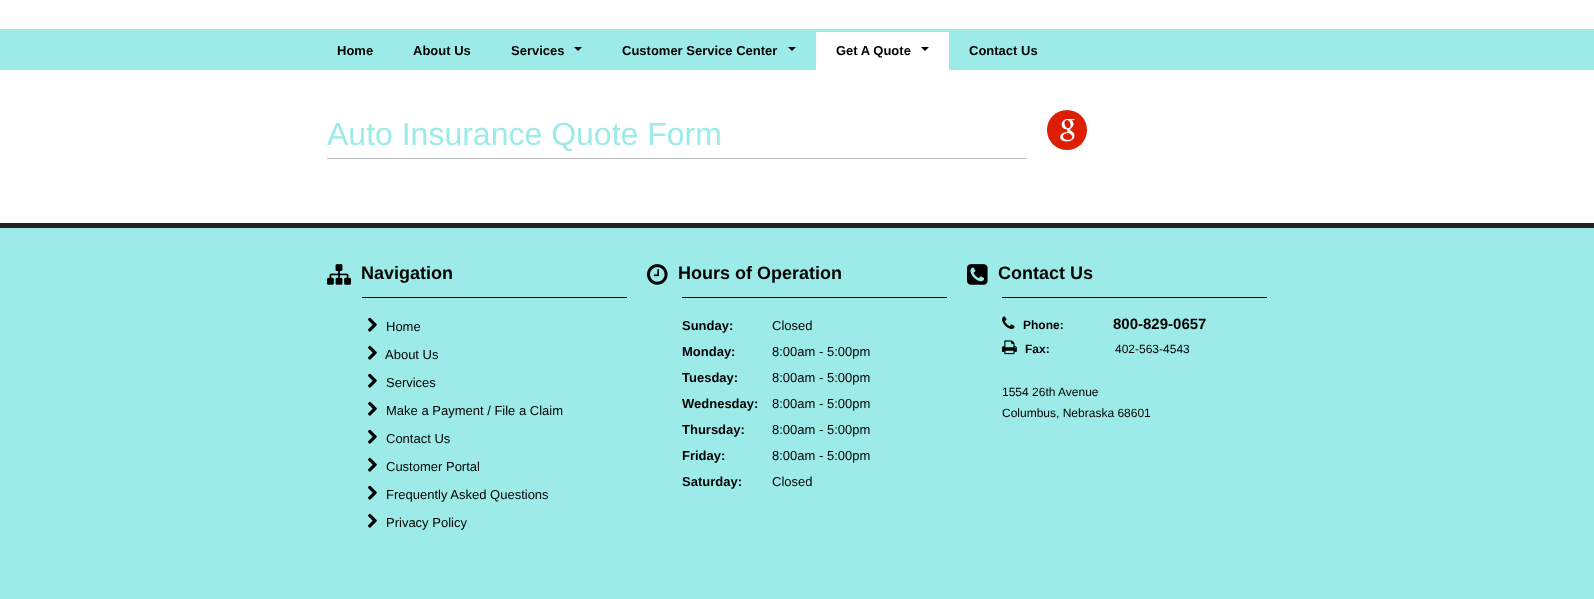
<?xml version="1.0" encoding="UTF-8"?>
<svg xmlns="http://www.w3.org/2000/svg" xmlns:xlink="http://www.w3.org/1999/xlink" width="1594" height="599">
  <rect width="100%" height="100%" fill="#9debe9" />
  <rect width="1594" height="29" fill="#ffffff" />
  <path d="M 574 47 h 8 l -4 4 z" fill="#000000" />
  <path d="M 788 47 h 8 l -4 4 z" fill="#000000" />
  <rect x="816" y="32" width="133" height="38" fill="#ffffff" />
  <path d="M 921 47 h 8 l -4 4 z" fill="#000000" />
  <rect y="70" width="1594" height="153" fill="#ffffff" />
  <rect x="327" y="158" width="700" height="1" fill="#bcbcbc" />
  <circle cx="1067" cy="130" r="20" fill="#dc1f02" />
  <image x="1060" y="119" width="15" height="23" xlink:href="image1.png" />
  <rect y="223" width="1594" height="5" fill="#232323" />
  <image x="327" y="264" width="24" height="21" xlink:href="image2.png" />
  <rect x="362" y="297" width="265" height="1" fill="#000000" />
  <image x="368" y="317" width="9" height="15" xlink:href="image3.png" />
  <image x="368" y="345" width="9" height="15" xlink:href="image3.png" />
  <image x="368" y="373" width="9" height="15" xlink:href="image3.png" />
  <image x="368" y="401" width="9" height="15" xlink:href="image3.png" />
  <image x="368" y="429" width="9" height="15" xlink:href="image3.png" />
  <image x="368" y="457" width="9" height="15" xlink:href="image3.png" />
  <image x="368" y="485" width="9" height="15" xlink:href="image3.png" />
  <image x="368" y="513" width="9" height="15" xlink:href="image3.png" />
  <image x="647" y="264" width="21" height="21" xlink:href="image4.png" />
  <rect x="682" y="297" width="265" height="1" fill="#000000" />
  <image x="967" y="264" width="21" height="21" xlink:href="image5.png" />
  <rect x="1002" y="297" width="265" height="1" fill="#000000" />
  <image x="1002" y="316" width="13" height="13" xlink:href="image6.png" />
  <image x="1002" y="340" width="15" height="15" xlink:href="image7.png" />
  <text x="337" y="55" style="font-family: Liberation Sans; font-size: 13px; font-weight: bold; fill: #000000">Home</text>
  <text x="413" y="55" style="font-family: Liberation Sans; font-size: 13px; font-weight: bold; fill: #000000">About Us</text>
  <text x="511" y="55" style="font-family: Liberation Sans; font-size: 13px; font-weight: bold; fill: #000000">Services</text>
  <text x="622" y="55" style="font-family: Liberation Sans; font-size: 13px; font-weight: bold; fill: #000000">Customer Service Center</text>
  <text x="836" y="55" style="font-family: Liberation Sans; font-size: 13px; font-weight: bold; fill: #000000">Get A Quote</text>
  <text x="969" y="55" style="font-family: Liberation Sans; font-size: 13px; font-weight: bold; fill: #000000">Contact Us</text>
  <text x="327" y="145" style="font-family: Liberation Sans; font-size: 32px; fill: #9debe9">Auto Insurance Quote Form</text>
  <text x="361" y="279" style="font-family: Liberation Sans; font-size: 18px; font-weight: bold; fill: #000000">Navigation</text>
  <text x="386" y="331" style="font-family: Liberation Sans; font-size: 13px; fill: #000000">Home</text>
  <text x="385" y="359" style="font-family: Liberation Sans; font-size: 13px; fill: #000000">About Us</text>
  <text x="386" y="387" style="font-family: Liberation Sans; font-size: 13px; fill: #000000">Services</text>
  <text x="386" y="415" style="font-family: Liberation Sans; font-size: 13px; fill: #000000">Make a Payment / File a Claim</text>
  <text x="386" y="443" style="font-family: Liberation Sans; font-size: 13px; fill: #000000">Contact Us</text>
  <text x="386" y="471" style="font-family: Liberation Sans; font-size: 13px; fill: #000000">Customer Portal</text>
  <text x="386" y="499" style="font-family: Liberation Sans; font-size: 13px; fill: #000000">Frequently Asked Questions</text>
  <text x="386" y="527" style="font-family: Liberation Sans; font-size: 13px; fill: #000000">Privacy Policy</text>
  <text x="678" y="279" style="font-family: Liberation Sans; font-size: 18px; font-weight: bold; fill: #000000">Hours of Operation</text>
  <text x="682" y="330" style="font-family: Liberation Sans; font-size: 13px; font-weight: bold; fill: #000000">Sunday:</text>
  <text x="772" y="330" style="font-family: Liberation Sans; font-size: 13px; fill: #000000">Closed</text>
  <text x="682" y="356" style="font-family: Liberation Sans; font-size: 13px; font-weight: bold; fill: #000000">Monday:</text>
  <text x="772" y="356" style="font-family: Liberation Sans; font-size: 13px; fill: #000000">8:00am - 5:00pm</text>
  <text x="682" y="382" style="font-family: Liberation Sans; font-size: 13px; font-weight: bold; fill: #000000">Tuesday:</text>
  <text x="772" y="382" style="font-family: Liberation Sans; font-size: 13px; fill: #000000">8:00am - 5:00pm</text>
  <text x="682" y="408" style="font-family: Liberation Sans; font-size: 13px; font-weight: bold; fill: #000000">Wednesday:</text>
  <text x="772" y="408" style="font-family: Liberation Sans; font-size: 13px; fill: #000000">8:00am - 5:00pm</text>
  <text x="682" y="434" style="font-family: Liberation Sans; font-size: 13px; font-weight: bold; fill: #000000">Thursday:</text>
  <text x="772" y="434" style="font-family: Liberation Sans; font-size: 13px; fill: #000000">8:00am - 5:00pm</text>
  <text x="682" y="460" style="font-family: Liberation Sans; font-size: 13px; font-weight: bold; fill: #000000">Friday:</text>
  <text x="772" y="460" style="font-family: Liberation Sans; font-size: 13px; fill: #000000">8:00am - 5:00pm</text>
  <text x="682" y="486" style="font-family: Liberation Sans; font-size: 13px; font-weight: bold; fill: #000000">Saturday:</text>
  <text x="772" y="486" style="font-family: Liberation Sans; font-size: 13px; fill: #000000">Closed</text>
  <text x="998" y="279" style="font-family: Liberation Sans; font-size: 18px; font-weight: bold; fill: #000000">Contact Us</text>
  <text x="1023" y="329" style="font-family: Liberation Sans; font-size: 12px; font-weight: bold; fill: #000000">Phone:</text>
  <text x="1113" y="329" style="font-family: Liberation Sans; font-size: 15px; font-weight: bold; fill: #000000">800-829-0657</text>
  <text x="1025" y="353" style="font-family: Liberation Sans; font-size: 12px; font-weight: bold; fill: #000000">Fax:</text>
  <text x="1115" y="353" style="font-family: Liberation Sans; font-size: 12px; fill: #000000">402-563-4543</text>
  <text x="1002" y="396" style="font-family: Liberation Sans; font-size: 12px; fill: #000000">1554 26th Avenue</text>
  <text x="1002" y="417" style="font-family: Liberation Sans; font-size: 12px; fill: #000000">Columbus, Nebraska 68601</text>
</svg>
